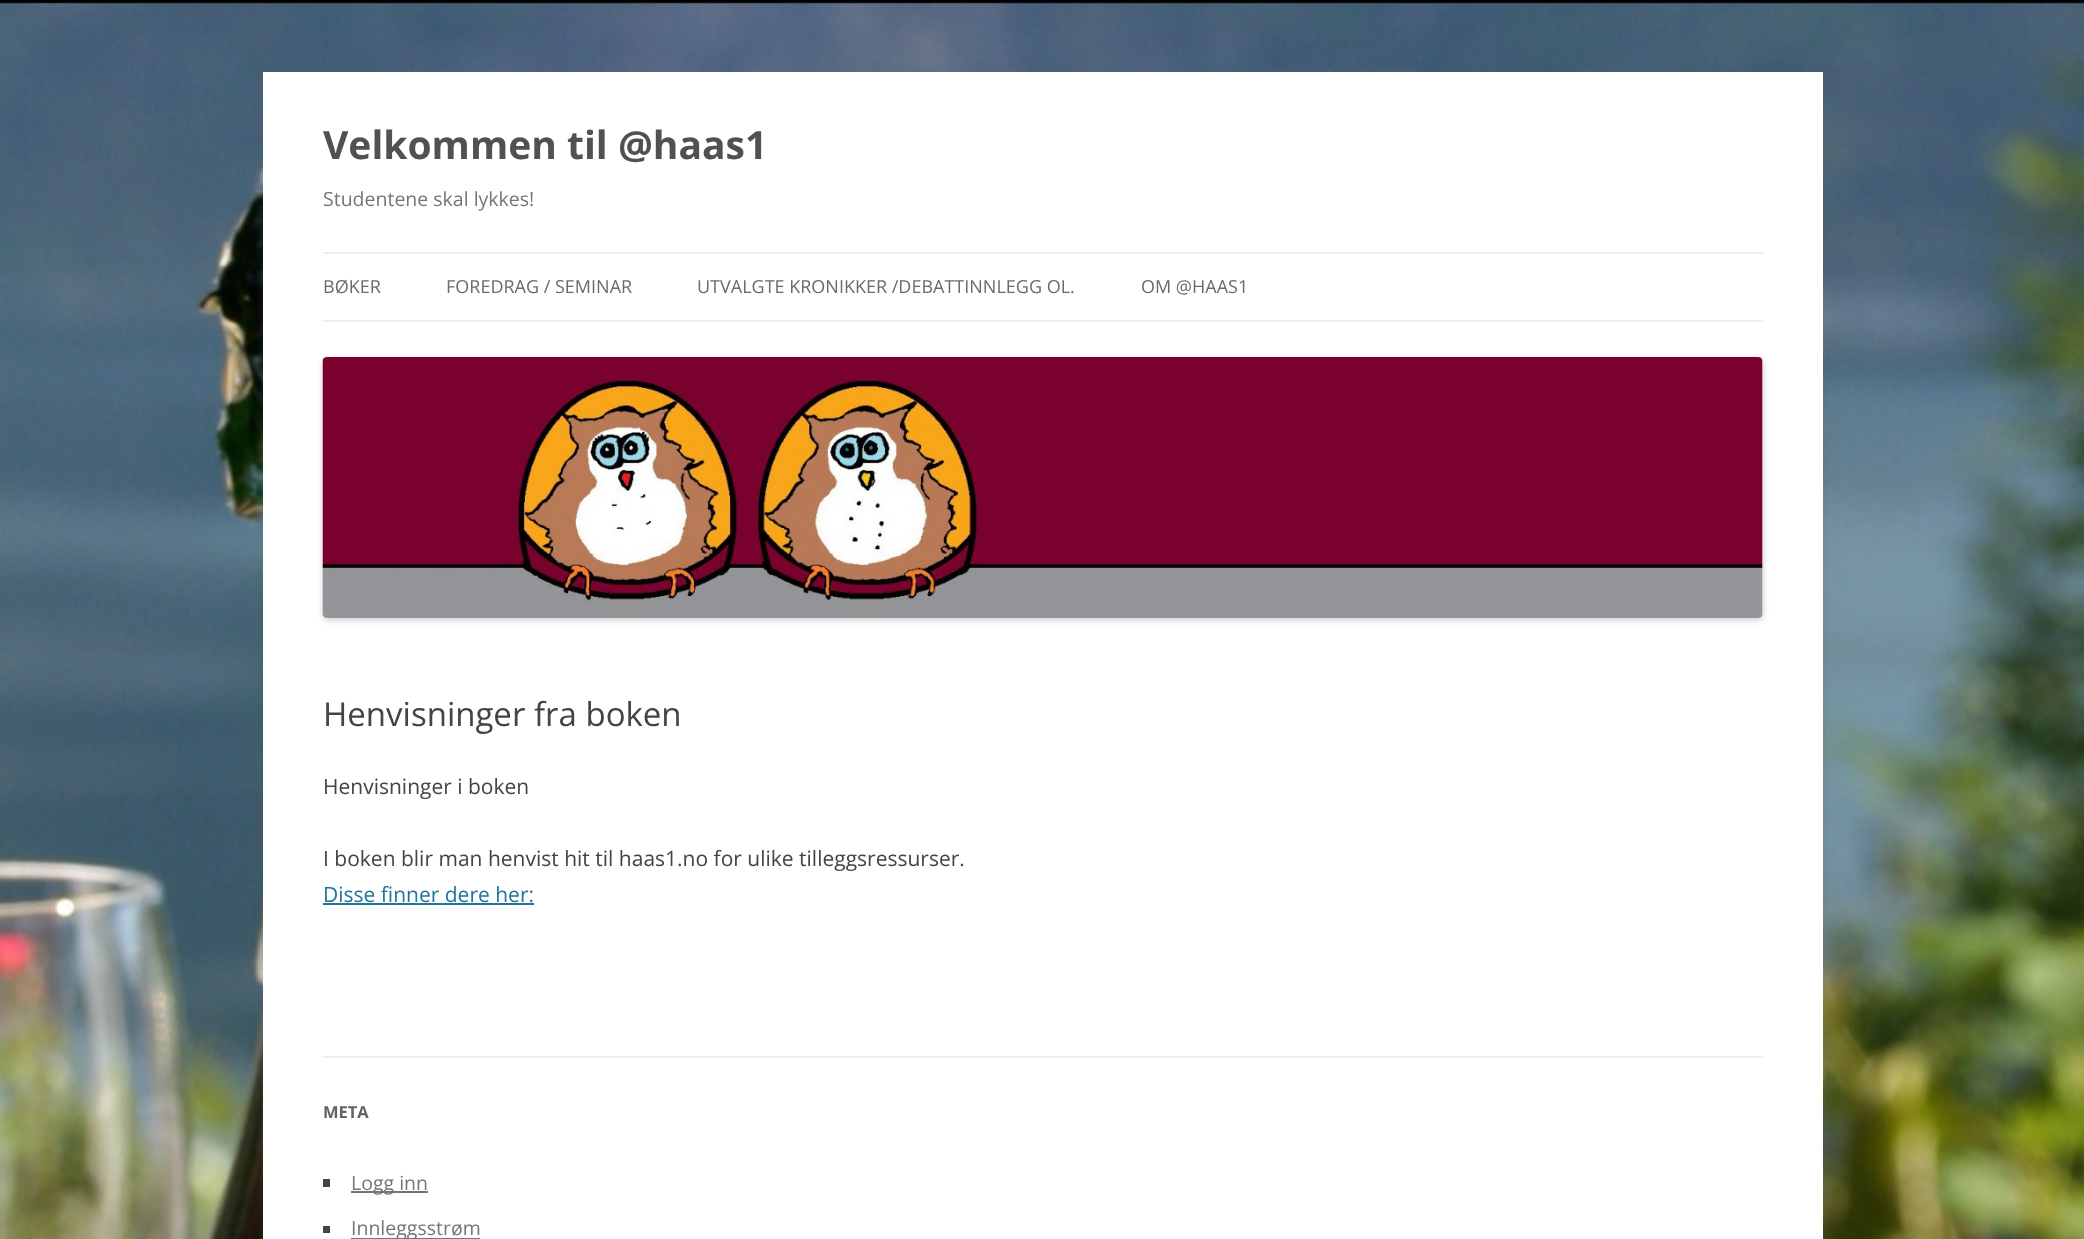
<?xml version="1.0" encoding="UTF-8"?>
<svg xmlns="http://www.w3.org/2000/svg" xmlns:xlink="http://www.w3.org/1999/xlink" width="2084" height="1239">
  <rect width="100%" height="100%" fill="#ffffff" />
  <image x="0" y="0" width="2084" height="1239" xlink:href="image1.png" />
  <rect x="263" y="75" width="1560" height="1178" fill="#646464" fill-opacity="0.3" filter="blur(4.5px)" />
  <rect x="263" y="72" width="1560" height="1167" fill="#ffffff" />
  <rect x="323" y="252" width="1440" height="2" fill="#ededed" />
  <rect x="323" y="320" width="1440" height="2" fill="#ededed" />
  <rect x="323" y="359" width="1440" height="261" rx="5" fill="#000000" fill-opacity="0.2" filter="blur(3px)" />
  <image x="322" y="357" width="1441" height="261" xlink:href="image2.png" />
  <rect x="323" y="903" width="211" height="2" fill="#21759b" />
  <rect x="323" y="1056" width="1440" height="2" fill="#ededed" />
  <rect x="323" y="1179" width="7" height="8" fill="#444444" />
  <rect x="351" y="1191" width="77" height="2" fill="#757575" />
  <rect x="323" y="1226" width="7" height="7" fill="#444444" />
  <rect x="351" y="1238" width="129" height="1" fill="#757575" />
  <text x="323" y="159" style="font-family: Open Sans; font-size: 39px; font-weight: bold; fill: #515151">Velkommen til @haas1</text>
  <text x="323" y="206" style="font-family: Open Sans; font-size: 19.5px; fill: #757575">Studentene skal lykkes!</text>
  <text x="323" y="293" style="font-family: Open Sans; font-size: 18px; fill: #6a6a6a">BØKER</text>
  <text x="446" y="293" style="font-family: Open Sans; font-size: 18px; fill: #6a6a6a">FOREDRAG / SEMINAR</text>
  <text x="697" y="293" style="font-family: Open Sans; font-size: 18px; fill: #6a6a6a">UTVALGTE KRONIKKER /DEBATTINNLEGG OL.</text>
  <text x="1141" y="293" style="font-family: Open Sans; font-size: 18px; fill: #6a6a6a">OM @HAAS1</text>
  <text x="323" y="726" style="font-family: Open Sans; font-size: 33px; fill: #444444">Henvisninger fra boken</text>
  <text x="323" y="794" style="font-family: Open Sans; font-size: 21px; fill: #444444">Henvisninger i boken</text>
  <text x="323" y="866" style="font-family: Open Sans; font-size: 21px; fill: #444444">I boken blir man henvist hit til haas1.no for ulike tilleggsressurser.</text>
  <text x="323" y="902" style="font-family: Open Sans; font-size: 21px; fill: #21759b">Disse finner dere her:</text>
  <text x="323" y="1118" style="font-family: Open Sans; font-size: 16.5px; font-weight: bold; fill: #636363">META</text>
  <text x="351" y="1190" style="font-family: Open Sans; font-size: 19.5px; fill: #757575">Logg inn</text>
  <text x="351" y="1235" style="font-family: Open Sans; font-size: 19.5px; fill: #757575">Innleggsstrøm</text>
</svg>
